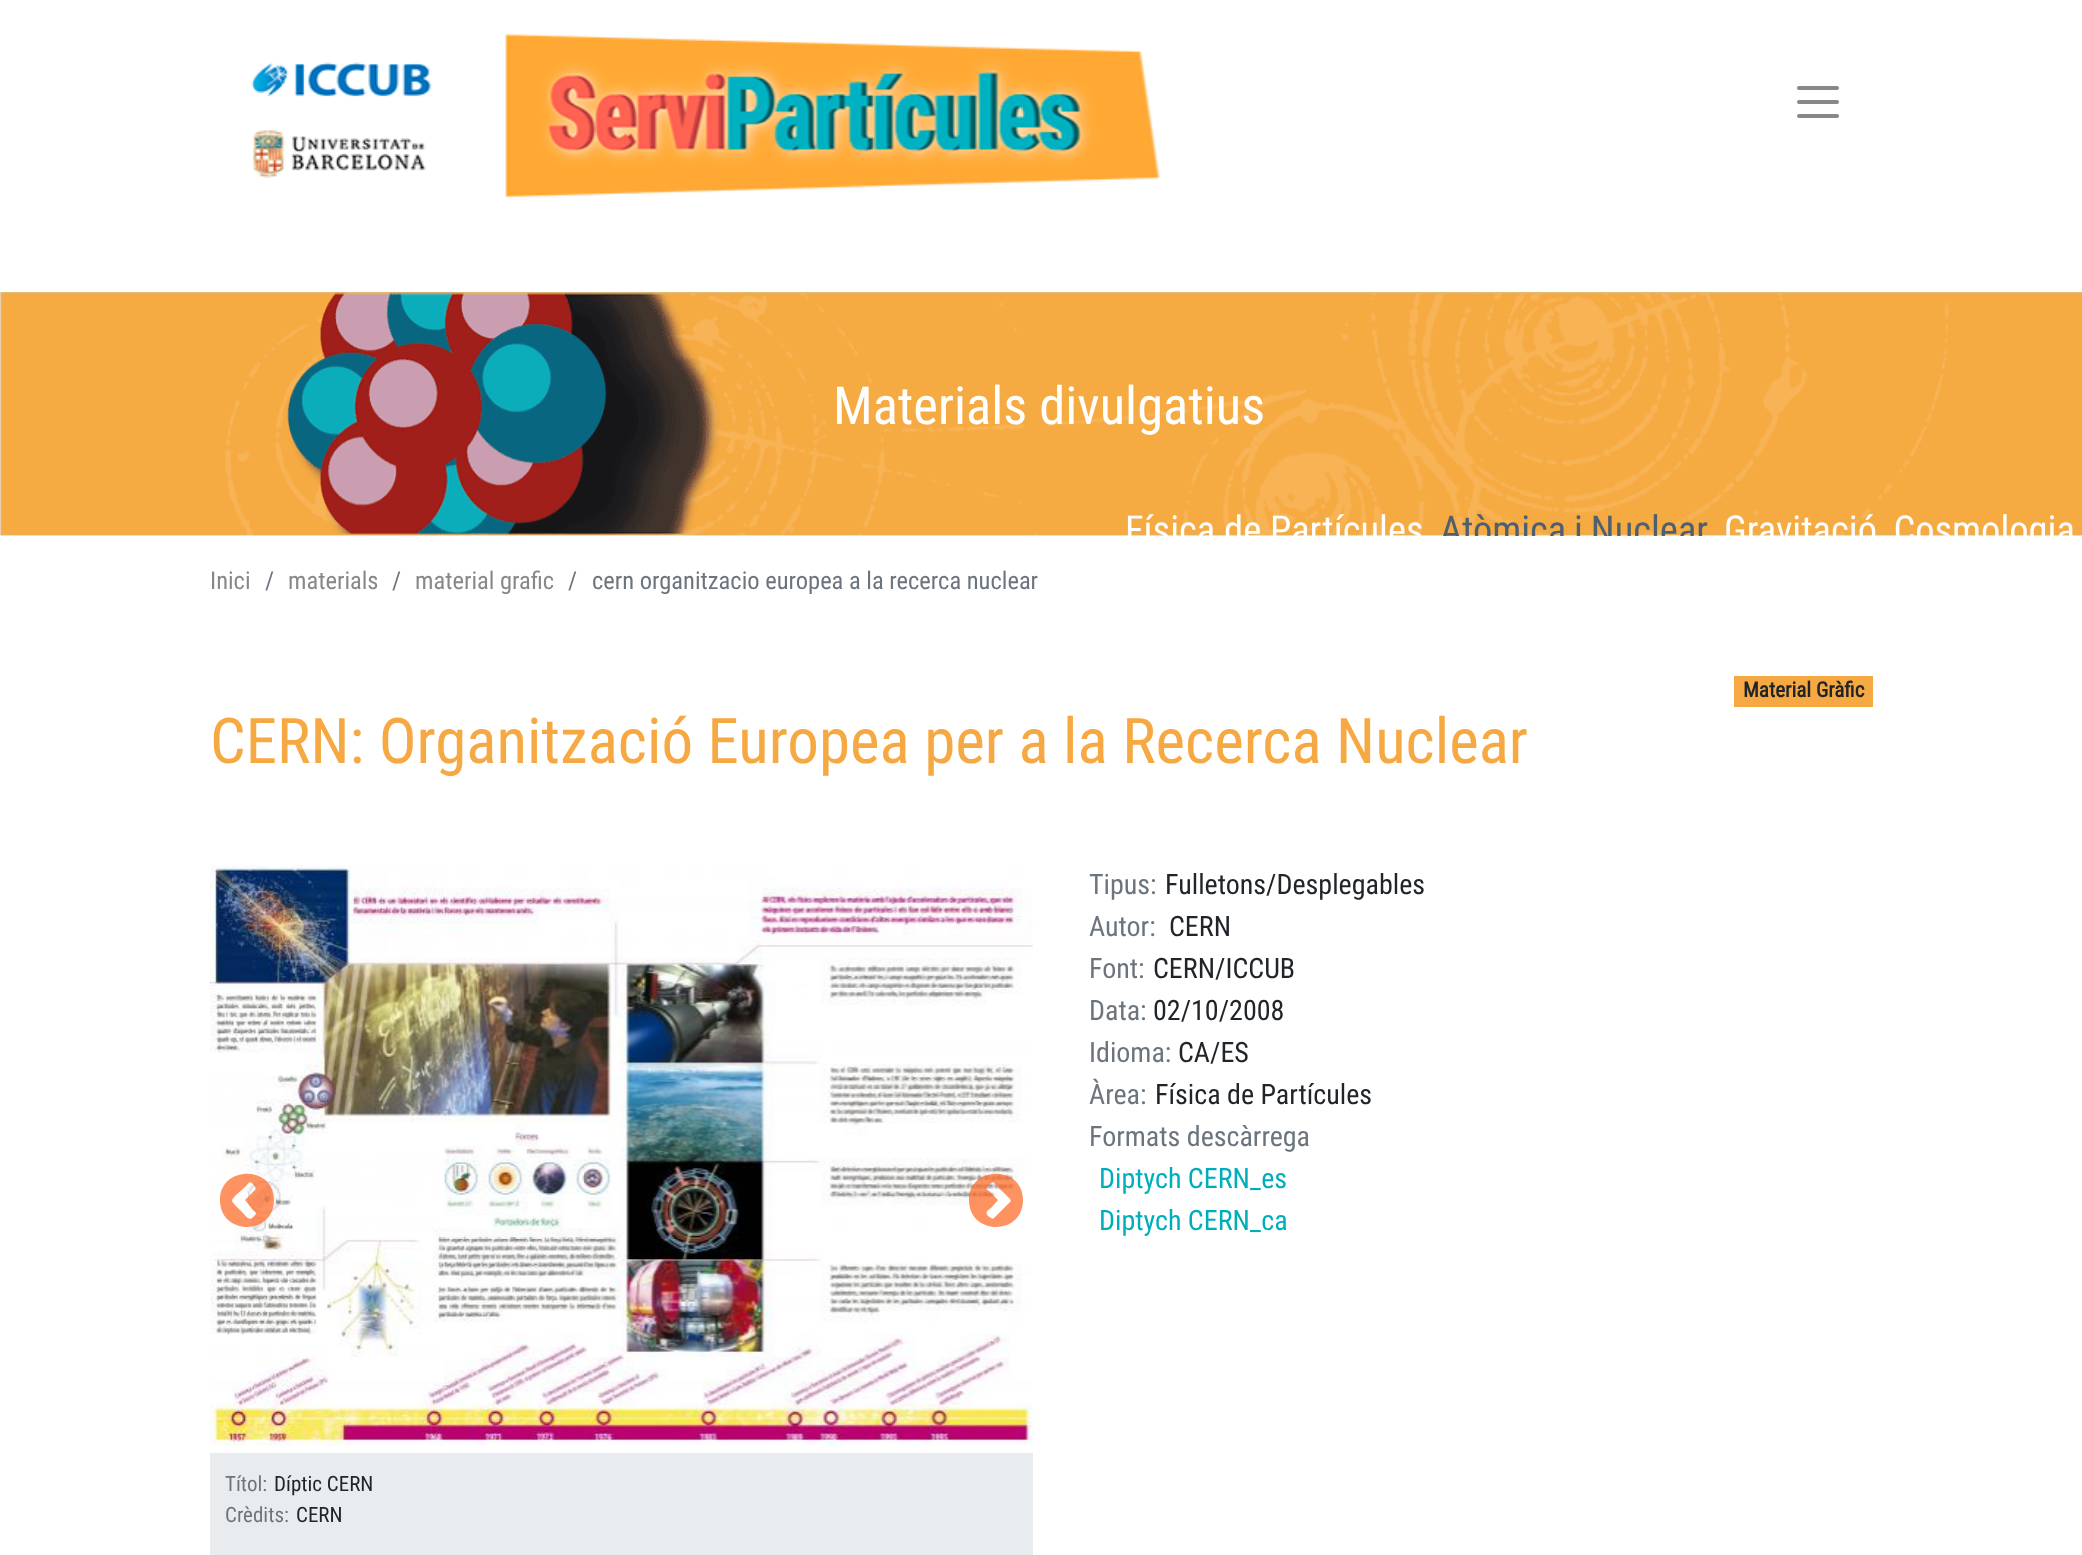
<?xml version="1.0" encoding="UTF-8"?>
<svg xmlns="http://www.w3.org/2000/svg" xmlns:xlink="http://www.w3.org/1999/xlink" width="2082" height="1555">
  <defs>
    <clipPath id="clip1"><rect y="292" width="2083" height="244" /></clipPath>
  </defs>
  <rect width="100%" height="100%" fill="#ffffff" />
  <image x="251" y="34" width="909" height="164" xlink:href="image1.png" />
  <rect x="1797" y="100" width="42" height="4" rx="2" fill="#868889" />
  <rect x="1797" y="86" width="42" height="4" rx="2" fill="#868889" />
  <rect x="1797" y="114" width="42" height="4" rx="2" fill="#868889" />
  <image x="0" y="292" width="2082" height="244" xlink:href="image2.png" />
  <rect x="1734" y="676" width="139" height="31" fill="#f6a942" />
  <rect x="210" y="1453" width="823" height="102" fill="#e9ecef" />
  <image x="210" y="865" width="823" height="581" xlink:href="image3.png" />
  <path d="M 252 1218 c -3 3 -8 -4 -9 -5 l -8 -8 c -4 -5 -4 -4 0 -9 l 11 -10 c 3 -4 4 -5 7 -2 c 1 2 4 4 2 6 l -10 10 l 8 10 c 5 4 3 4 -1 8 z m 22 -18 c 0 -35 -54 -35 -54 0 c 0 36 54 36 54 0 z" fill="#ff6d2c" fill-opacity="0.75" />
  <path d="M 994 1218 c -2 2 -4 -1 -6 -2 c -3 -4 -1 -5 3 -8 l 7 -8 l -9 -9 c -4 -3 -3 -3 1 -7 c 4 -4 5 0 9 4 l 8 8 c 5 5 5 4 0 9 z m 29 -18 c 0 -35 -54 -35 -54 0 c 0 36 54 36 54 0 z" fill="#ff6d2c" fill-opacity="0.75" />
  <text x="833" y="424" style="font-family: Roboto Condensed; font-size: 52.5px; fill: #ffffff">Materials divulgatius</text>
  <g clip-path="url(#clip1)">
    <text x="1125" y="543" style="font-family: Roboto Condensed; font-size: 38.5px; fill: #ffffff">Física de Partícules</text>
    <text x="1440" y="543" word-spacing="-1" style="font-family: Roboto Condensed; font-size: 38.5px; fill: #4e5f70">Atòmica i Nuclear</text>
    <text x="1724" y="543" style="font-family: Roboto Condensed; font-size: 38.5px; fill: #ffffff">Gravitació, Cosmologia</text>
  </g>
  <text x="210" y="589" style="font-family: Roboto Condensed; font-size: 24.5px; fill: #868889">Inici</text>
  <text x="265" y="589" style="font-family: Roboto Condensed; font-size: 24.5px; fill: #6c757d">/</text>
  <text x="288" y="589" style="font-family: Roboto Condensed; font-size: 24.5px; fill: #868889">materials</text>
  <text x="392" y="589" style="font-family: Roboto Condensed; font-size: 24.5px; fill: #6c757d">/</text>
  <text x="415" y="589" style="font-family: Roboto Condensed; font-size: 24.5px; fill: #868889">material grafic</text>
  <text x="568" y="589" style="font-family: Roboto Condensed; font-size: 24.5px; fill: #6c757d">/</text>
  <text x="592" y="589" style="font-family: Roboto Condensed; font-size: 24.5px; fill: #6c757d">cern organitzacio europea a la recerca nuclear</text>
  <text x="1743" y="697" style="font-family: Roboto Condensed; font-size: 21px; font-weight: bold; fill: #212529">Material Gràfic</text>
  <text x="210" y="763" style="font-family: Roboto Condensed; font-size: 63px; fill: #f6a942">CERN: Organització Europea per a la Recerca Nuclear</text>
  <text x="1089" y="894" style="font-family: Roboto Condensed; font-size: 28px; fill: #6c757d">Tipus:</text>
  <text x="1165" y="894" style="font-family: Roboto Condensed; font-size: 28px; fill: #212529">Fulletons/Desplegables</text>
  <text x="1089" y="936" style="font-family: Roboto Condensed; font-size: 28px; fill: #6c757d">Autor:</text>
  <text x="1169" y="936" style="font-family: Roboto Condensed; font-size: 28px; fill: #212529">CERN</text>
  <text x="1089" y="978" style="font-family: Roboto Condensed; font-size: 28px; fill: #6c757d">Font:</text>
  <text x="1153" y="978" style="font-family: Roboto Condensed; font-size: 28px; fill: #212529">CERN/ICCUB</text>
  <text x="1089" y="1020" style="font-family: Roboto Condensed; font-size: 28px; fill: #6c757d">Data:</text>
  <text x="1153" y="1020" style="font-family: Roboto Condensed; font-size: 28px; fill: #212529">02/10/2008</text>
  <text x="1089" y="1062" style="font-family: Roboto Condensed; font-size: 28px; fill: #6c757d">Idioma:</text>
  <text x="1178" y="1062" style="font-family: Roboto Condensed; font-size: 28px; fill: #212529">CA/ES</text>
  <text x="1089" y="1104" style="font-family: Roboto Condensed; font-size: 28px; fill: #6c757d">Àrea:</text>
  <text x="1155" y="1104" style="font-family: Roboto Condensed; font-size: 28px; fill: #212529">Física de Partícules</text>
  <text x="1089" y="1146" style="font-family: Roboto Condensed; font-size: 28px; fill: #6c757d">Formats descàrrega</text>
  <text x="1099" y="1188" style="font-family: Roboto Condensed; font-size: 28px; fill: #00adbb">Diptych CERN_es</text>
  <text x="1099" y="1230" style="font-family: Roboto Condensed; font-size: 28px; fill: #00adbb">Diptych CERN_ca</text>
  <text x="225" y="1491" style="font-family: Roboto Condensed; font-size: 21px; fill: #6c757d">Títol:</text>
  <text x="274" y="1491" style="font-family: Roboto Condensed; font-size: 21px; fill: #212529">Díptic CERN</text>
  <text x="225" y="1522" style="font-family: Roboto Condensed; font-size: 21px; fill: #6c757d">Crèdits:</text>
  <text x="296" y="1522" style="font-family: Roboto Condensed; font-size: 21px; fill: #212529">CERN</text>
</svg>
